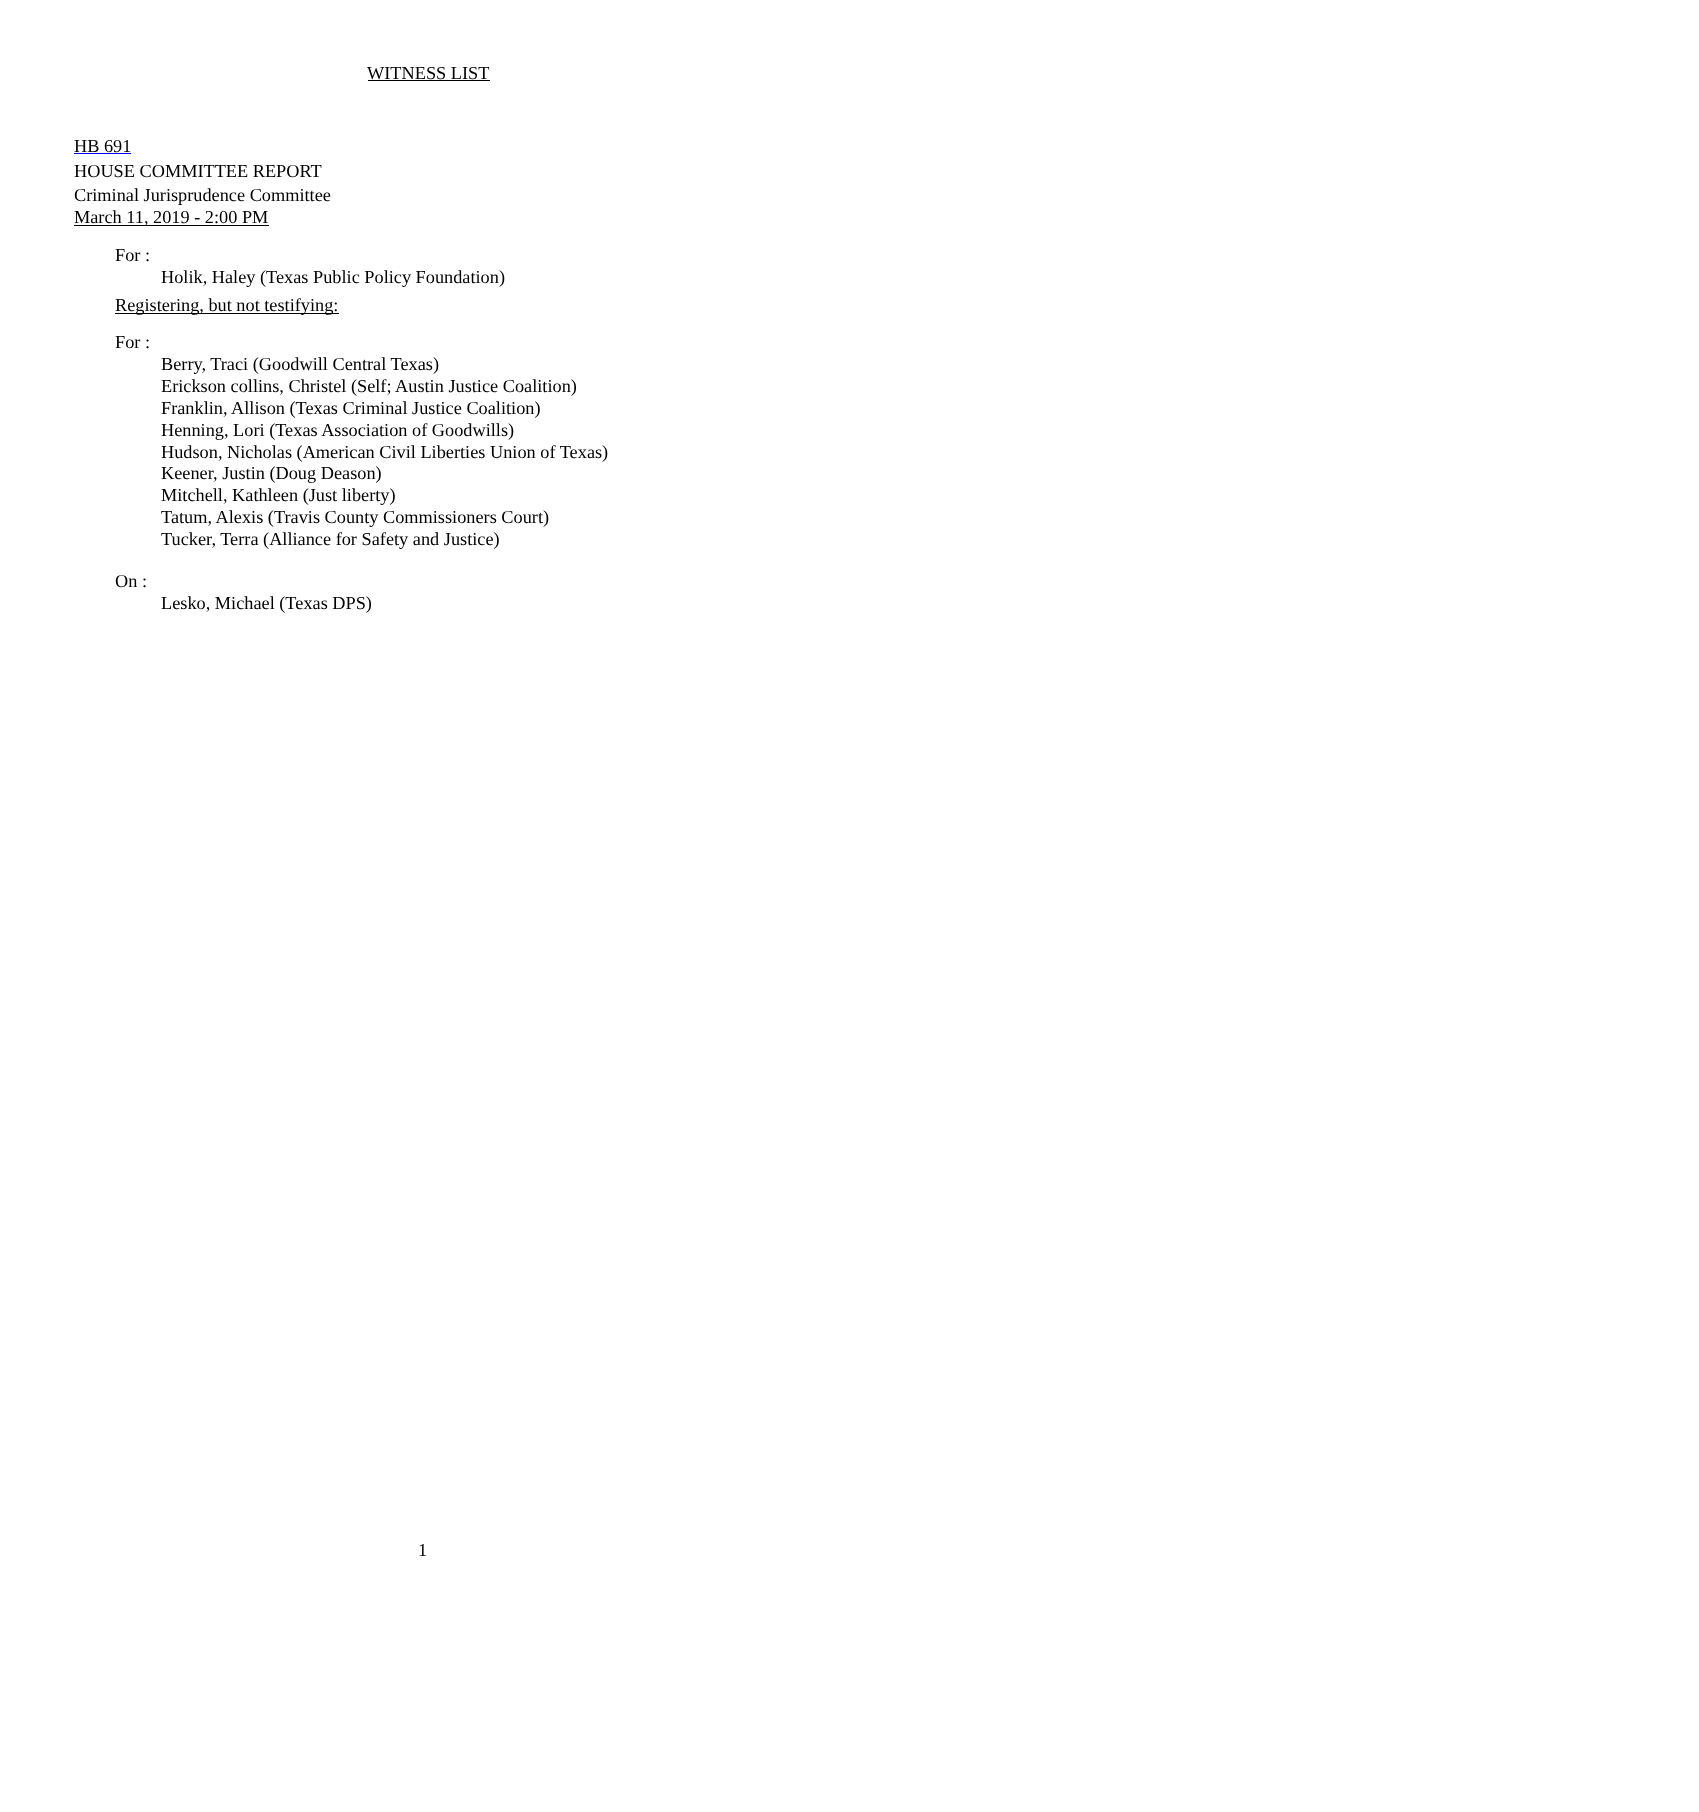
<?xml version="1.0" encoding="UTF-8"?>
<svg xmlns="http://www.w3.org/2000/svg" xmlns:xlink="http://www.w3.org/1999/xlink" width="1699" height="1812">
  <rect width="100%" height="100%" fill="#ffffff" />
  <rect x="368" y="80" width="122" height="1" fill="#000000" />
  <rect x="74" y="153" width="57" height="1" fill="#0000ee" />
  <rect x="74" y="225" width="195" height="1" fill="#000000" />
  <rect x="115" y="313" width="224" height="1" fill="#000000" />
  <text x="367" y="79" style="font-family: Liberation Serif; font-size: 18.3px; fill: #000000">WITNESS LIST</text>
  <text x="74" y="152" style="font-family: Liberation Serif; font-size: 18.3px; fill: #000000">HB 691</text>
  <text x="74" y="177" style="font-family: Liberation Serif; font-size: 18.3px; fill: #000000">HOUSE COMMITTEE REPORT</text>
  <text x="74" y="201" style="font-family: Liberation Serif; font-size: 18.3px; fill: #000000">Criminal Jurisprudence Committee</text>
  <text x="74" y="223" style="font-family: Liberation Serif; font-size: 18.3px; fill: #000000">March 11, 2019 - 2:00 PM</text>
  <text x="115" y="261" style="font-family: Liberation Serif; font-size: 18.3px; fill: #000000">For :</text>
  <text x="161" y="283" style="font-family: Liberation Serif; font-size: 18.3px; fill: #000000">Holik, Haley (Texas Public Policy Foundation)</text>
  <text x="115" y="311" style="font-family: Liberation Serif; font-size: 18.3px; fill: #000000">Registering, but not testifying:</text>
  <text x="115" y="348" style="font-family: Liberation Serif; font-size: 18.3px; fill: #000000">For :</text>
  <text x="161" y="370" style="font-family: Liberation Serif; font-size: 18.3px; fill: #000000">Berry, Traci (Goodwill Central Texas)</text>
  <text x="161" y="392" style="font-family: Liberation Serif; font-size: 18.3px; fill: #000000">Erickson collins, Christel (Self; Austin Justice Coalition)</text>
  <text x="161" y="414" style="font-family: Liberation Serif; font-size: 18.3px; fill: #000000">Franklin, Allison (Texas Criminal Justice Coalition)</text>
  <text x="161" y="436" style="font-family: Liberation Serif; font-size: 18.3px; fill: #000000">Henning, Lori (Texas Association of Goodwills)</text>
  <text x="161" y="458" style="font-family: Liberation Serif; font-size: 18.3px; fill: #000000">Hudson, Nicholas (American Civil Liberties Union of Texas)</text>
  <text x="161" y="479" style="font-family: Liberation Serif; font-size: 18.3px; fill: #000000">Keener, Justin (Doug Deason)</text>
  <text x="161" y="501" style="font-family: Liberation Serif; font-size: 18.3px; fill: #000000">Mitchell, Kathleen (Just liberty)</text>
  <text x="161" y="523" style="font-family: Liberation Serif; font-size: 18.3px; fill: #000000">Tatum, Alexis (Travis County Commissioners Court)</text>
  <text x="161" y="545" style="font-family: Liberation Serif; font-size: 18.3px; fill: #000000">Tucker, Terra (Alliance for Safety and Justice)</text>
  <text x="115" y="587" style="font-family: Liberation Serif; font-size: 18.3px; fill: #000000">On :</text>
  <text x="161" y="609" style="font-family: Liberation Serif; font-size: 18.3px; fill: #000000">Lesko, Michael (Texas DPS)</text>
  <text x="418" y="1556" style="font-family: Liberation Serif; font-size: 18.3px; fill: #000000">1</text>
</svg>
